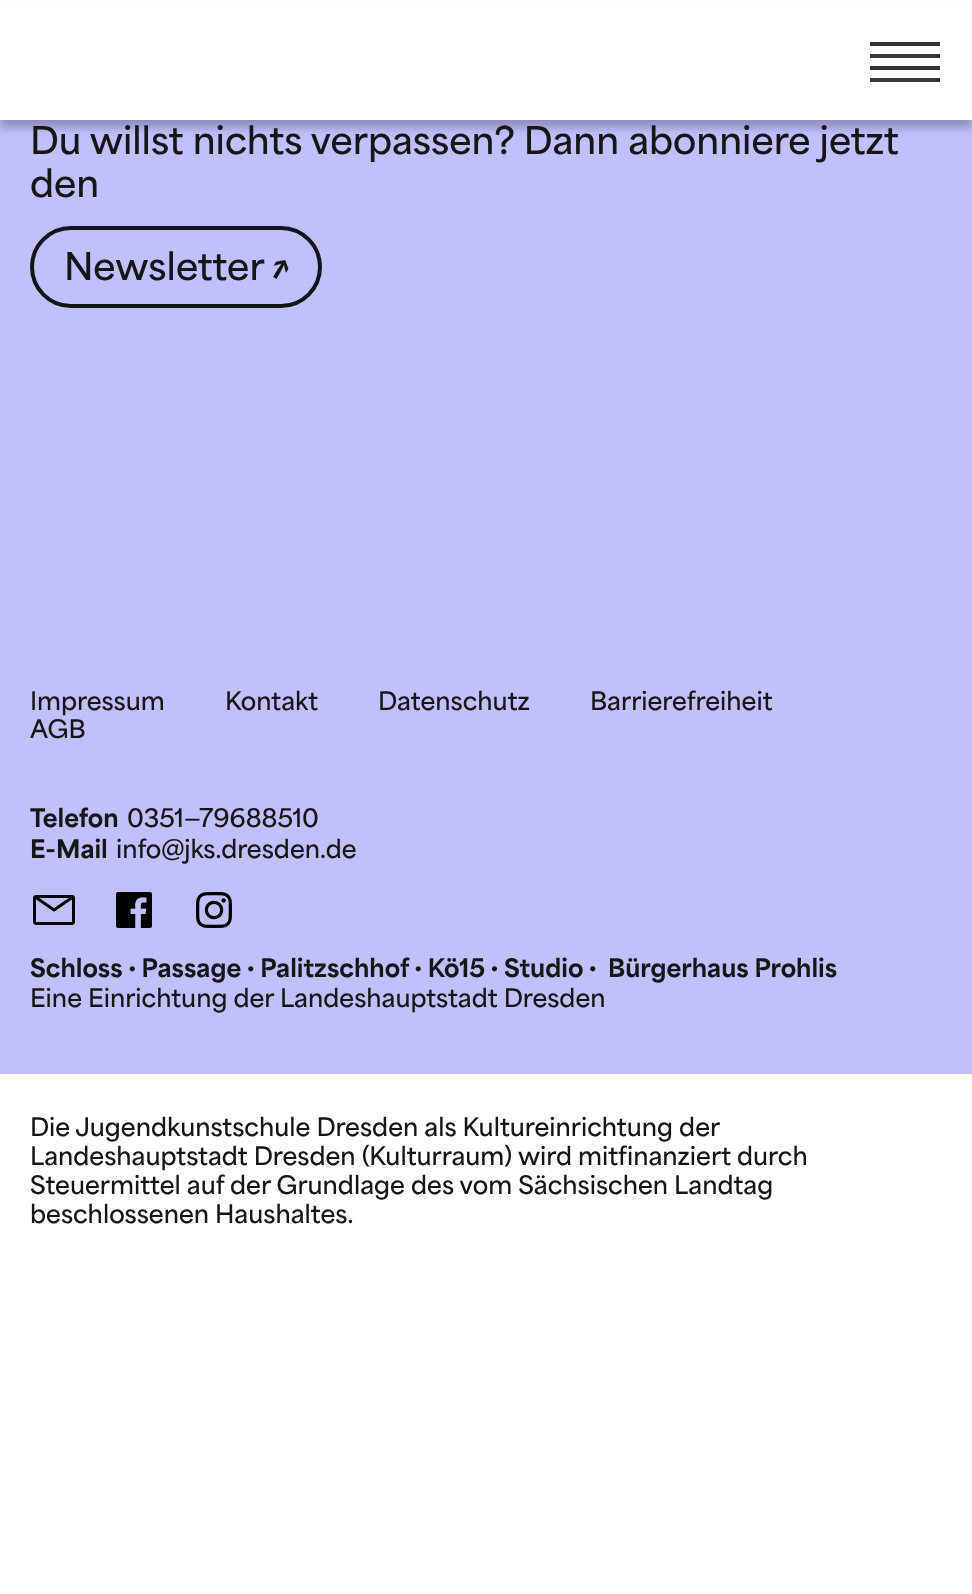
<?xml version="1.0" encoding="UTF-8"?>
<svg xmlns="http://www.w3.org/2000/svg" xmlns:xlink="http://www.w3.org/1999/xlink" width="972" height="1594">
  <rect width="100%" height="100%" fill="#ffffff" />
  <rect y="120" width="972" height="954" fill="#c0c0ff" />
  <rect y="8" width="972" height="120" fill="#000000" fill-opacity="0.25" filter="blur(4px)" />
  <rect y="1" width="972" height="119" fill="#ffffff" />
  <rect x="870" y="42" width="70" height="4" fill="#333333" />
  <rect x="870" y="54" width="70" height="4" fill="#333333" />
  <rect x="870" y="66" width="70" height="4" fill="#333333" />
  <rect x="870" y="78" width="70" height="4" fill="#333333" />
  <rect x="32" y="228" width="288" height="78" rx="39" fill="none" stroke="#121619" stroke-width="4" />
  <image x="33" y="895" width="42" height="30" xlink:href="image1.png" />
  <image x="116" y="892" width="36" height="36" xlink:href="image2.png" />
  <image x="196" y="892" width="36" height="36" xlink:href="image3.png" />
  <text x="30" y="154" style="font-family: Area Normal; font-size: 36px; font-weight: bold; fill: #161616">Du willst nichts verpassen? Dann abonniere jetzt</text>
  <text x="30" y="197" style="font-family: Area Normal; font-size: 36px; font-weight: bold; fill: #161616">den</text>
  <text x="64" y="280" style="font-family: Area Normal; font-size: 36px; font-weight: bold; fill: #161616">Newsletter</text>
  <text x="273" y="280" style="font-family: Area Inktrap; font-size: 36px; font-weight: 900; fill: #161616">↗</text>
  <text x="30" y="710" style="font-family: Area Normal; font-size: 24px; font-weight: bold; fill: #161616">Impressum</text>
  <text x="225" y="710" style="font-family: Area Normal; font-size: 24px; font-weight: bold; fill: #161616">Kontakt</text>
  <text x="378" y="710" style="font-family: Area Normal; font-size: 24px; font-weight: bold; fill: #161616">Datenschutz</text>
  <text x="590" y="710" style="font-family: Area Normal; font-size: 24px; font-weight: bold; fill: #161616">Barrierefreiheit</text>
  <text x="30" y="738" style="font-family: Area Normal; font-size: 24px; font-weight: bold; fill: #161616">AGB</text>
  <text x="30" y="827" style="font-family: Area Normal; font-size: 24px; font-weight: 900; fill: #161616">Telefon</text>
  <text x="127" y="827" style="font-family: Area Normal; font-size: 24px; font-weight: bold; fill: #161616">0351—79688510</text>
  <text x="30" y="858" style="font-family: Area Normal; font-size: 24px; font-weight: 900; fill: #161616">E-Mail</text>
  <text x="116" y="858" style="font-family: Area Normal; font-size: 24px; font-weight: bold; fill: #161616">info@jks.dresden.de</text>
  <text x="30" y="977" style="font-family: Area Inktrap; font-size: 24px; font-weight: 900; fill: #161616" xml:space="preserve">Schloss · Passage · Palitzschhof · Kö15 · Studio ·  Bürgerhaus Prohlis</text>
  <text x="30" y="1007" style="font-family: Area Normal; font-size: 24px; font-weight: bold; fill: #161616">Eine Einrichtung der Landeshauptstadt Dresden</text>
  <text x="30" y="1136" style="font-family: Area Normal; font-size: 24px; font-weight: bold; fill: #161616">Die Jugendkunstschule Dresden als Kultureinrichtung der</text>
  <text x="30" y="1165" style="font-family: Area Normal; font-size: 24px; font-weight: bold; fill: #161616">Landeshauptstadt Dresden (Kulturraum) wird mitfinanziert durch</text>
  <text x="30" y="1194" style="font-family: Area Normal; font-size: 24px; font-weight: bold; fill: #161616">Steuermittel auf der Grundlage des vom Sächsischen Landtag</text>
  <text x="30" y="1223" style="font-family: Area Normal; font-size: 24px; font-weight: bold; fill: #161616">beschlossenen Haushaltes.</text>
</svg>
